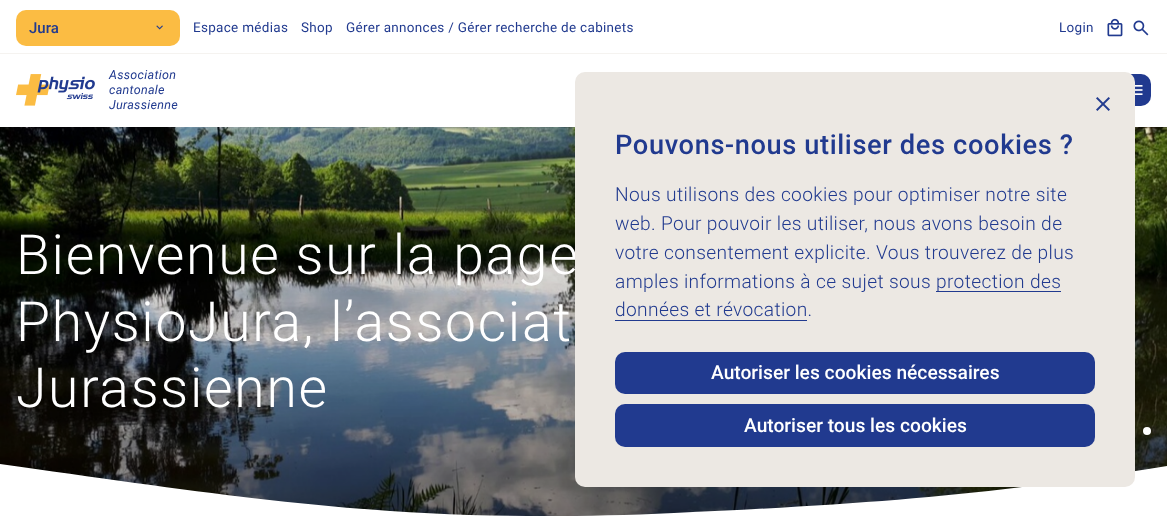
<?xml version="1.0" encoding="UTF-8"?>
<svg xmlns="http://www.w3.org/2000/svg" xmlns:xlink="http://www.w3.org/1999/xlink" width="1167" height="519">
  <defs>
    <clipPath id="clip1"><rect x="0" y="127" width="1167" height="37" /></clipPath>
  </defs>
  <rect width="100%" height="100%" fill="#ffffff" />
  <image x="16" y="74" width="79" height="32" xlink:href="image4.png" />
  <rect x="1119" y="74" width="32" height="32" rx="10" fill="#213a8f" />
  <image x="1135" y="85" width="8" height="10" xlink:href="image5.png" />
  <image x="0" y="127" width="1167" height="390" xlink:href="image6.png" />
  <g clip-path="url(#clip1)">
    <rect x="-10" y="-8" width="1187" height="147" fill="#000000" fill-opacity="0.1" filter="blur(30px)" />
  </g>
  <rect y="53" width="1167" height="1" fill="#f5f3f0" />
  <rect x="16" y="10" width="164" height="36" rx="10" fill="#fbbc43" />
  <image x="156" y="25" width="7" height="5" xlink:href="image1.png" />
  <image x="1107" y="18" width="16" height="19" xlink:href="image2.png" />
  <image x="1133" y="20" width="16" height="16" xlink:href="image3.png" />
  <circle cx="1147" cy="431" r="4" fill="#ffffff" />
  <path d="M 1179 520 h -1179 v -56 c 263 37 415 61 674 49 c 219 -10 330 -20 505 -49 z" fill="#ffffff" />
  <text x="29" y="33" style="font-family: Roboto; font-size: 15px; font-weight: 500; fill: #213a8f">Jura</text>
  <text x="193" y="32" style="font-family: Roboto; font-size: 13.5px; letter-spacing: 0.3px; fill: #213a8f">Espace médias</text>
  <text x="301" y="32" style="font-family: Roboto; font-size: 13.5px; letter-spacing: 0.3px; fill: #213a8f">Shop</text>
  <text x="346" y="32" style="font-family: Roboto; font-size: 13.5px; letter-spacing: 0.3px; fill: #213a8f">Gérer annonces / Gérer recherche de cabinets</text>
  <text x="1059" y="32" style="font-family: Roboto; font-size: 13.5px; letter-spacing: 0.3px; fill: #213a8f">Login</text>
  <text x="109" y="79" style="font-family: Roboto; font-size: 12.5px; font-style: italic; letter-spacing: 0.25px; fill: #213a8f">Association</text>
  <text x="109" y="94" style="font-family: Roboto; font-size: 12.5px; font-style: italic; letter-spacing: 0.25px; fill: #213a8f">cantonale</text>
  <text x="109" y="109" style="font-family: Roboto; font-size: 12.5px; font-style: italic; letter-spacing: 0.25px; fill: #213a8f">Jurassienne</text>
  <text x="16" y="274" style="font-family: Roboto; font-size: 55.25px; font-weight: 300; letter-spacing: 1.7px; fill: #ffffff">Bienvenue sur la page</text>
  <text x="16" y="341" style="font-family: Roboto; font-size: 55.25px; font-weight: 300; letter-spacing: 1.7px; fill: #ffffff">PhysioJura, l’associat</text>
  <text x="16" y="407" style="font-family: Roboto; font-size: 55.25px; font-weight: 300; letter-spacing: 1.7px; fill: #ffffff">Jurassienne</text>
  <rect x="575" y="72" width="560" height="415" rx="10" fill="#ece8e3" />
  <image x="1096" y="97" width="14" height="14" xlink:href="image7.png" />
  <text x="615" y="154" style="font-family: Roboto; font-size: 27.25px; font-weight: 500; letter-spacing: 0.6px; fill: #213a8f">Pouvons-nous utiliser des cookies ?</text>
  <text x="615" y="201" style="font-family: Roboto; font-size: 19.2px; font-weight: 300; letter-spacing: 0.35px; fill: #213a8f">Nous utilisons des cookies pour optimiser notre site</text>
  <text x="615" y="230" style="font-family: Roboto; font-size: 19.2px; font-weight: 300; letter-spacing: 0.35px; fill: #213a8f">web. Pour pouvoir les utiliser, nous avons besoin de</text>
  <text x="615" y="259" style="font-family: Roboto; font-size: 19.2px; font-weight: 300; letter-spacing: 0.35px; fill: #213a8f">votre consentement explicite. Vous trouverez de plus</text>
  <text x="615" y="288" style="font-family: Roboto; font-size: 19.2px; font-weight: 300; letter-spacing: 0.35px; fill: #213a8f">amples informations à ce sujet sous</text>
  <rect x="936" y="291" width="125" height="1" fill="#213a8f" />
  <text x="936" y="288" style="font-family: Roboto; font-size: 19.2px; font-weight: 300; letter-spacing: 0.35px; fill: #213a8f">protection des</text>
  <text x="615" y="316" style="font-family: Roboto; font-size: 19.2px; font-weight: 300; letter-spacing: 0.35px; fill: #213a8f">données et révocation.</text>
  <rect x="615" y="320" width="192" height="1" fill="#213a8f" />
  <rect x="615" y="352" width="480" height="42" rx="10" fill="#213a8f" />
  <text x="711" y="379" style="font-family: Roboto; font-size: 19.2px; font-weight: 500; fill: #ffffff">Autoriser les cookies nécessaires</text>
  <rect x="615" y="404" width="480" height="43" rx="10" fill="#213a8f" />
  <text x="744" y="432" style="font-family: Roboto; font-size: 19.2px; font-weight: 500; fill: #ffffff">Autoriser tous les cookies</text>
</svg>
